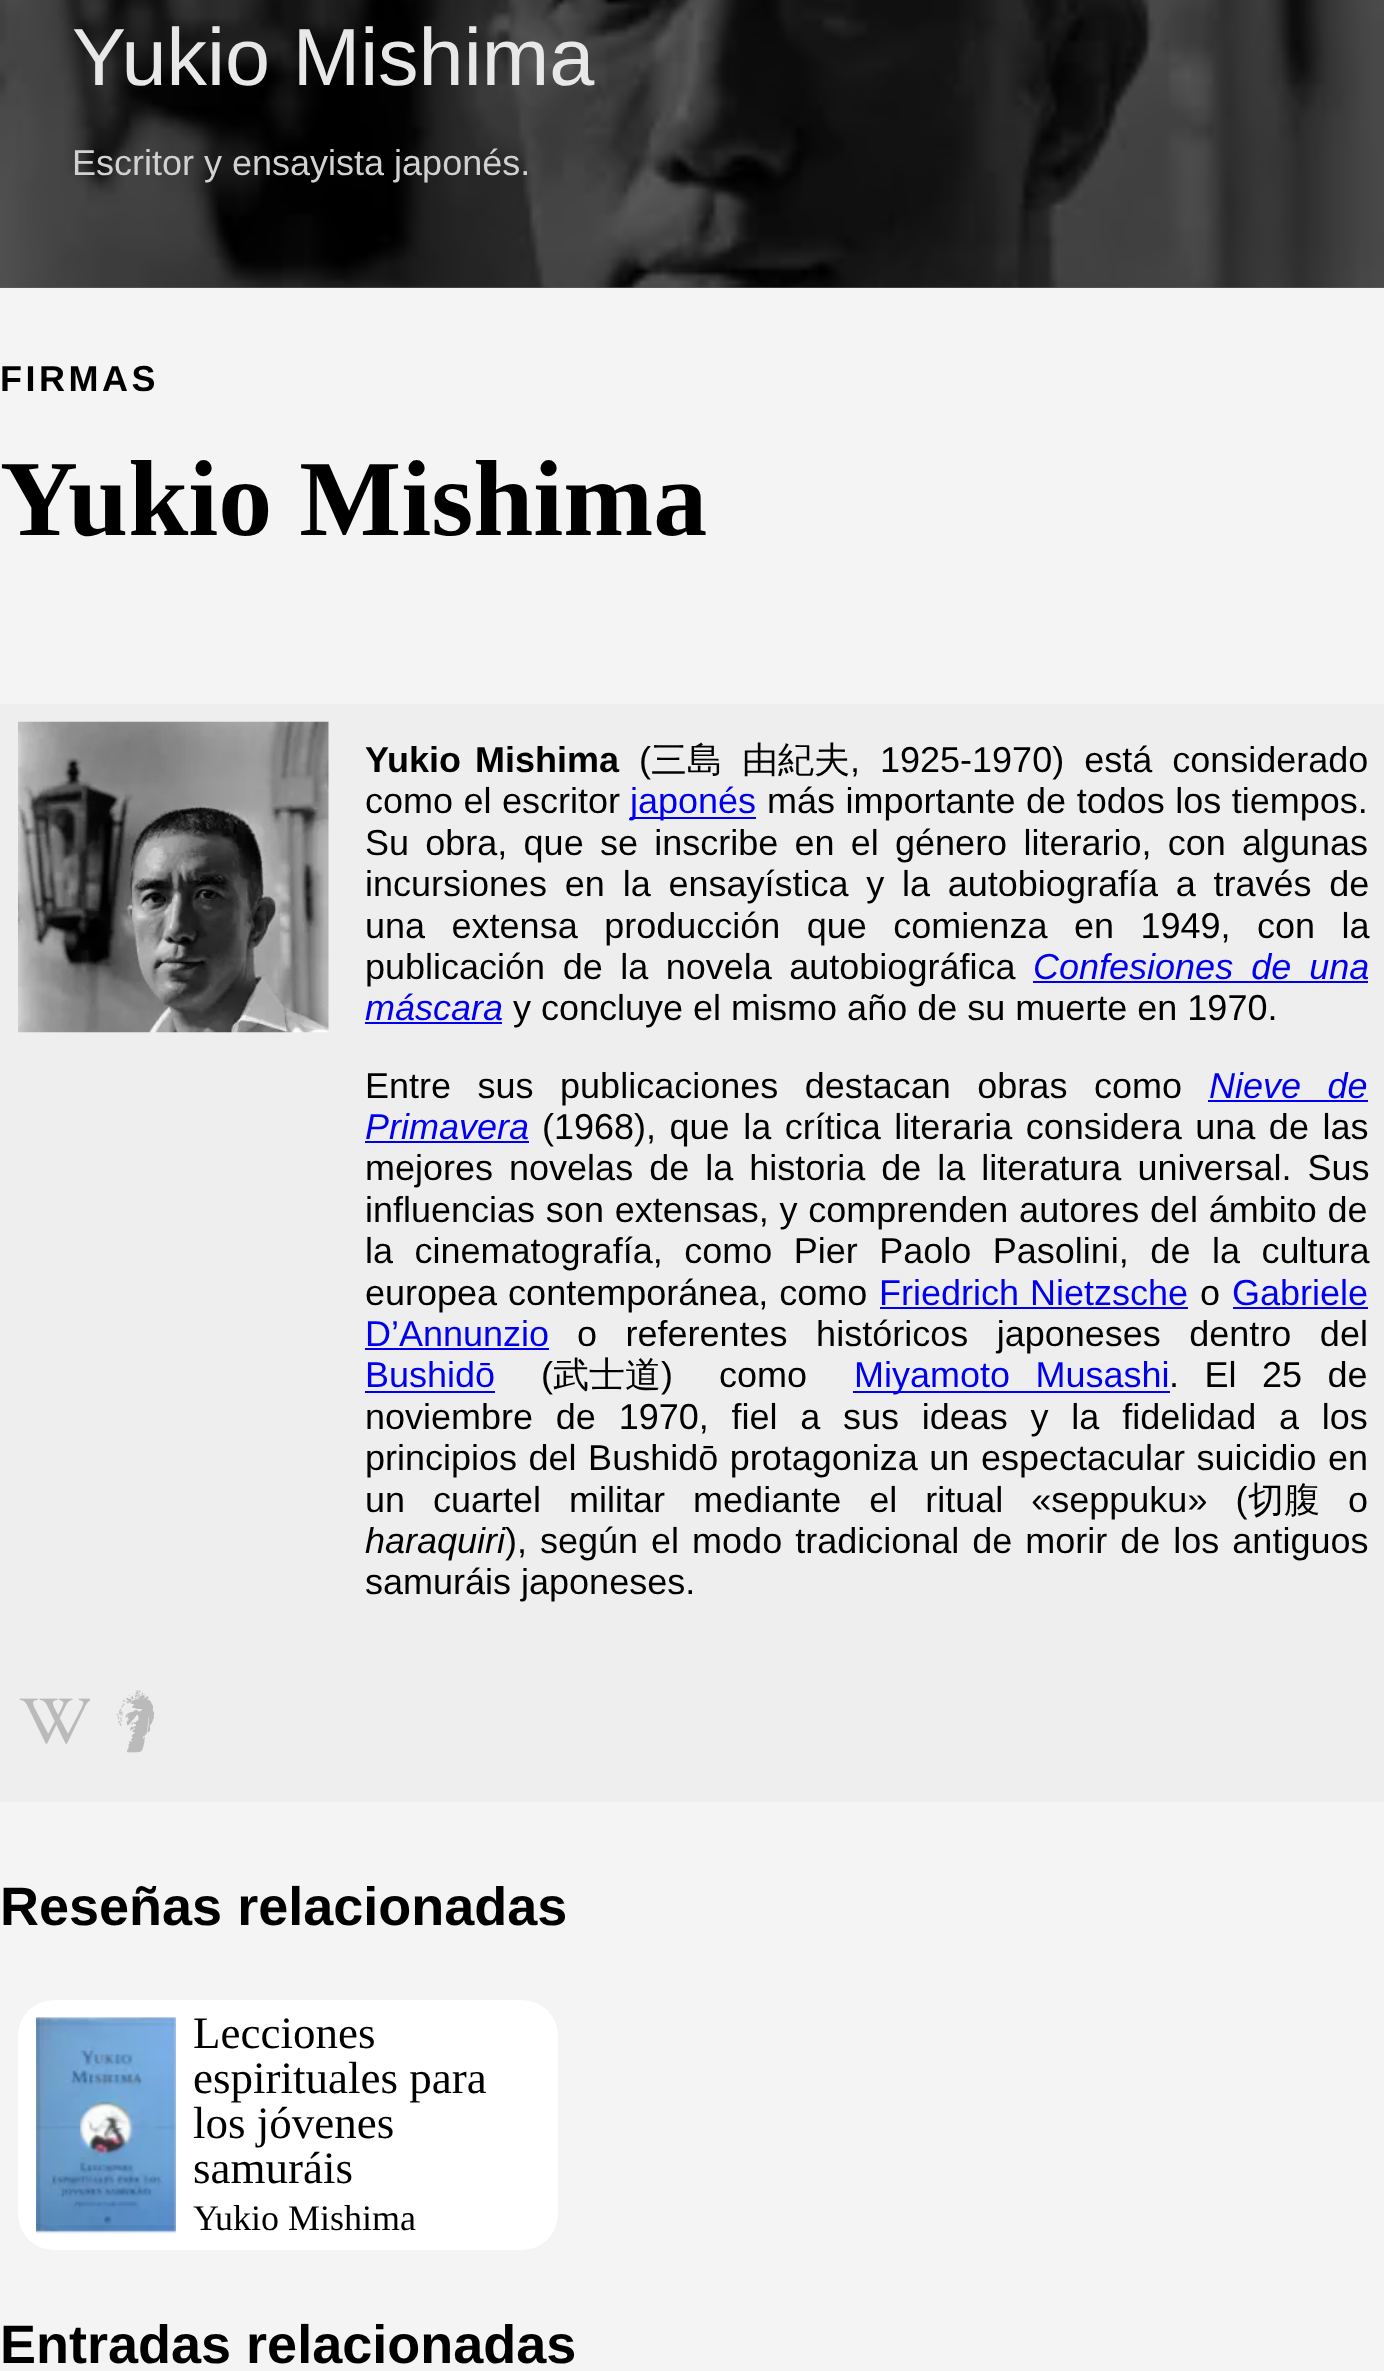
<?xml version="1.0" encoding="UTF-8"?>
<svg xmlns="http://www.w3.org/2000/svg" xmlns:xlink="http://www.w3.org/1999/xlink" width="1384" height="2371">
  <rect width="100%" height="100%" fill="#f4f4f4" />
  <rect y="287" width="1384" height="1" fill="#626262" />
  <image x="0" y="0" width="1384" height="288" xlink:href="image1.png" />
  <rect y="704" width="1384" height="1098" fill="#eeeeee" />
  <image x="18" y="721" width="311" height="312" xlink:href="image2.png" />
  <rect x="630" y="817" width="126" height="2" fill="#0000ee" />
  <rect x="1033" y="981" width="335" height="2" fill="#0000ee" />
  <rect x="365" y="1022" width="137" height="2" fill="#0000ee" />
  <rect x="1208" y="1100" width="160" height="2" fill="#0000ee" />
  <rect x="365" y="1141" width="164" height="2" fill="#0000ee" />
  <rect x="880" y="1307" width="308" height="2" fill="#0000ee" />
  <rect x="1233" y="1307" width="135" height="2" fill="#0000ee" />
  <rect x="365" y="1348" width="184" height="2" fill="#0000ee" />
  <rect x="365" y="1391" width="130" height="2" fill="#0000ee" />
  <rect x="853" y="1391" width="317" height="2" fill="#0000ee" />
  <image x="19" y="1698" width="71" height="46" xlink:href="image3.png" />
  <image x="116" y="1690" width="39" height="63" xlink:href="image4.png" />
  <rect x="18" y="2000" width="540" height="250" rx="36" fill="#ffffff" />
  <image x="36" y="2017" width="140" height="217" xlink:href="image5.png" />
  <text x="72" y="85" style="font-family: Liberation Sans; font-size: 81px; fill: #e8e8e8">Yukio Mishima</text>
  <text x="72" y="175" style="font-family: Liberation Sans; font-size: 36px; fill: #d1d1d1">Escritor y ensayista japonés.</text>
  <text x="0" y="391" style="font-family: Liberation Sans; font-size: 36px; font-weight: bold; letter-spacing: 3.5px; fill: #000000">FIRMAS</text>
  <text x="0" y="535" style="font-family: Liberation Serif; font-size: 108px; font-weight: bold; fill: #000000">Yukio Mishima</text>
  <text x="365" y="772" word-spacing="4" style="font-family: Liberation Sans; font-size: 36px; font-weight: bold; fill: #000000">Yukio Mishima</text>
  <text x="639" y="772" style="font-family: Liberation Sans; font-size: 36px; fill: #000000">(</text>
  <text x="651" y="772" style="font-family: WenQuanYi Zen Hei; font-size: 36px; font-weight: 500; fill: #000000">三島</text>
  <text x="742" y="772" style="font-family: WenQuanYi Zen Hei; font-size: 36px; font-weight: 500; fill: #000000">由紀夫</text>
  <text x="850" y="772" word-spacing="10" style="font-family: Liberation Sans; font-size: 36px; fill: #000000">, 1925-1970) está considerado</text>
  <text x="365" y="813" word-spacing="0.5" style="font-family: Liberation Sans; font-size: 36px; fill: #000000">como el escritor</text>
  <text x="630" y="813" style="font-family: Liberation Sans; font-size: 36px; fill: #0000ee">japonés</text>
  <text x="767" y="813" word-spacing="0.5" style="font-family: Liberation Sans; font-size: 36px; fill: #000000">más importante de todos los tiempos.</text>
  <text x="365" y="855" word-spacing="6.25" style="font-family: Liberation Sans; font-size: 36px; fill: #000000">Su obra, que se inscribe en el género literario, con algunas</text>
  <text x="365" y="896" word-spacing="7.75" style="font-family: Liberation Sans; font-size: 36px; fill: #000000">incursiones en la ensayística y la autobiografía a través de</text>
  <text x="365" y="938" word-spacing="16.5" style="font-family: Liberation Sans; font-size: 36px; fill: #000000">una extensa producción que comienza en 1949, con la</text>
  <text x="365" y="979" word-spacing="7.5" style="font-family: Liberation Sans; font-size: 36px; fill: #000000">publicación de la novela autobiográfica</text>
  <text x="1033" y="979" word-spacing="8" style="font-family: Liberation Sans; font-size: 36px; font-style: italic; fill: #0000ee">Confesiones de una</text>
  <text x="365" y="1020" style="font-family: Liberation Sans; font-size: 36px; font-style: italic; fill: #0000ee">máscara</text>
  <text x="513" y="1020" style="font-family: Liberation Sans; font-size: 36px; fill: #000000">y concluye el mismo año de su muerte en 1970.</text>
  <text x="365" y="1098" word-spacing="16.5" style="font-family: Liberation Sans; font-size: 36px; fill: #000000">Entre sus publicaciones destacan obras como</text>
  <text x="1209" y="1098" word-spacing="16.5" style="font-family: Liberation Sans; font-size: 36px; font-style: italic; fill: #0000ee">Nieve de</text>
  <text x="365" y="1139" style="font-family: Liberation Sans; font-size: 36px; font-style: italic; fill: #0000ee">Primavera</text>
  <text x="542" y="1139" word-spacing="3.5" style="font-family: Liberation Sans; font-size: 36px; fill: #000000">(1968), que la crítica literaria considera una de las</text>
  <text x="365" y="1180" word-spacing="6" style="font-family: Liberation Sans; font-size: 36px; fill: #000000">mejores novelas de la historia de la literatura universal. Sus</text>
  <text x="365" y="1222" word-spacing="0.75" style="font-family: Liberation Sans; font-size: 36px; fill: #000000">influencias son extensas, y comprenden autores del ámbito de</text>
  <text x="365" y="1263" word-spacing="11.5" style="font-family: Liberation Sans; font-size: 36px; fill: #000000">la cinematografía, como Pier Paolo Pasolini, de la cultura</text>
  <text x="365" y="1305" word-spacing="1" style="font-family: Liberation Sans; font-size: 36px; fill: #000000">europea contemporánea, como</text>
  <text x="879" y="1305" word-spacing="1" style="font-family: Liberation Sans; font-size: 36px; fill: #0000ee">Friedrich Nietzsche</text>
  <text x="1200" y="1305" style="font-family: Liberation Sans; font-size: 36px; fill: #000000">o</text>
  <text x="1232" y="1305" style="font-family: Liberation Sans; font-size: 36px; fill: #0000ee">Gabriele</text>
  <text x="365" y="1346" style="font-family: Liberation Sans; font-size: 36px; fill: #0000ee">D’Annunzio</text>
  <text x="577" y="1346" word-spacing="18.5" style="font-family: Liberation Sans; font-size: 36px; fill: #000000">o referentes históricos japoneses dentro del</text>
  <text x="365" y="1387" style="font-family: Liberation Sans; font-size: 36px; fill: #0000ee">Bushidō</text>
  <text x="541" y="1387" style="font-family: Liberation Sans; font-size: 36px; fill: #000000">(</text>
  <text x="553" y="1387" style="font-family: WenQuanYi Zen Hei; font-size: 36px; font-weight: 500; fill: #000000">武士道</text>
  <text x="661" y="1387" word-spacing="36" style="font-family: Liberation Sans; font-size: 36px; fill: #000000">) como</text>
  <text x="854" y="1387" word-spacing="15.5" style="font-family: Liberation Sans; font-size: 36px; fill: #0000ee">Miyamoto Musashi</text>
  <text x="1169" y="1387" word-spacing="15.5" style="font-family: Liberation Sans; font-size: 36px; fill: #000000">. El 25 de</text>
  <text x="365" y="1429" word-spacing="12.75" style="font-family: Liberation Sans; font-size: 36px; fill: #000000">noviembre de 1970, fiel a sus ideas y la fidelidad a los</text>
  <text x="365" y="1470" word-spacing="1.5" style="font-family: Liberation Sans; font-size: 36px; fill: #000000">principios del Bushidō protagoniza un espectacular suicidio en</text>
  <text x="365" y="1512" word-spacing="18" style="font-family: Liberation Sans; font-size: 36px; fill: #000000">un cuartel militar mediante el ritual «seppuku» (</text>
  <text x="1248" y="1512" style="font-family: WenQuanYi Zen Hei; font-size: 36px; font-weight: 500; fill: #000000">切腹</text>
  <text x="1348" y="1512" style="font-family: Liberation Sans; font-size: 36px; fill: #000000">o</text>
  <text x="365" y="1553" style="font-family: Liberation Sans; font-size: 36px; font-style: italic; fill: #000000">haraquiri</text>
  <text x="505" y="1553" word-spacing="3" style="font-family: Liberation Sans; font-size: 36px; fill: #000000">), según el modo tradicional de morir de los antiguos</text>
  <text x="365" y="1594" style="font-family: Liberation Sans; font-size: 36px; fill: #000000">samuráis japoneses.</text>
  <text x="0" y="1925" style="font-family: Liberation Sans; font-size: 54px; font-weight: bold; fill: #000000">Reseñas relacionadas</text>
  <text x="193" y="2048" style="font-family: Liberation Serif; font-size: 45px; fill: #000000">Lecciones</text>
  <text x="193" y="2093" style="font-family: Liberation Serif; font-size: 45px; fill: #000000">espirituales para</text>
  <text x="193" y="2138" style="font-family: Liberation Serif; font-size: 45px; fill: #000000">los jóvenes</text>
  <text x="193" y="2183" style="font-family: Liberation Serif; font-size: 45px; fill: #000000">samuráis</text>
  <text x="193" y="2230" style="font-family: Liberation Serif; font-size: 36px; fill: #000000">Yukio Mishima</text>
  <text x="0" y="2363" style="font-family: Liberation Sans; font-size: 54px; font-weight: bold; fill: #000000">Entradas relacionadas</text>
</svg>
